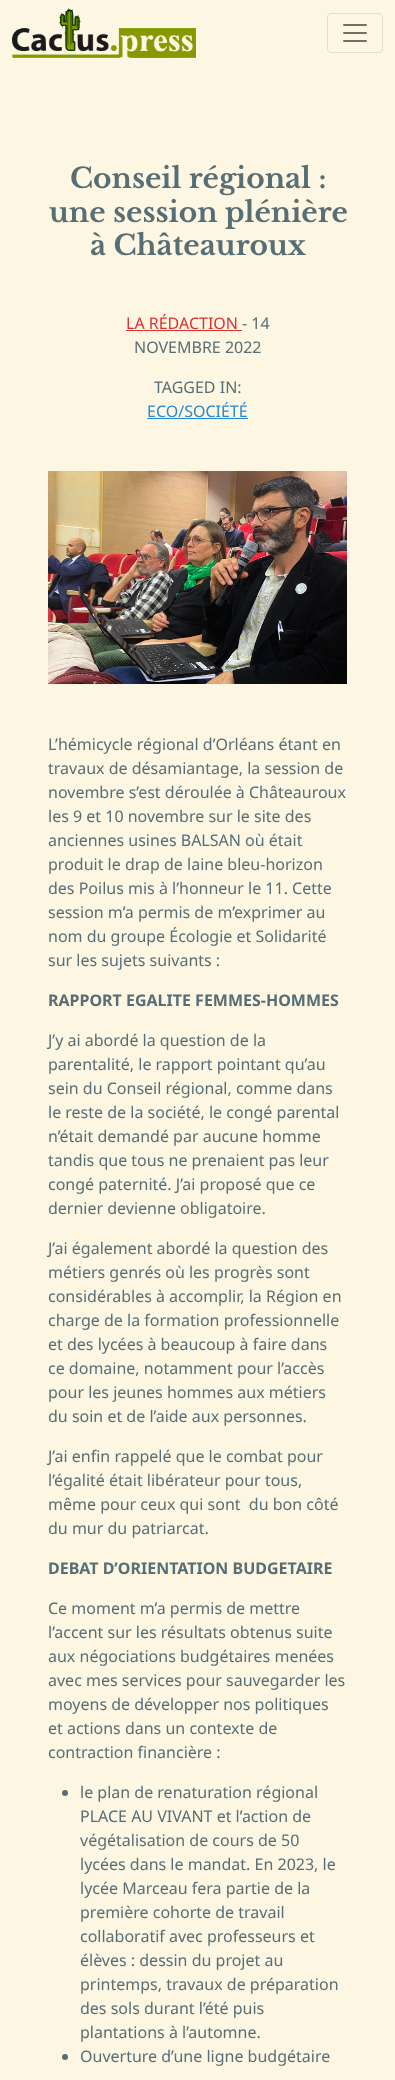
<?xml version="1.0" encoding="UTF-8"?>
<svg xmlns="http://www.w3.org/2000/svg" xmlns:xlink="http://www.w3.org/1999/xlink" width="395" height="2080">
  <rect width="100%" height="100%" fill="#fdf6e3" />
  <image x="12" y="8" width="184" height="50" xlink:href="image1.png" />
  <rect x="327.5" y="13.5" width="55" height="39" rx="3.5" fill="none" stroke="#e4ddcc" />
  <image x="343" y="24" width="24" height="18" xlink:href="image2.png" />
  <rect x="126" y="330" width="116" height="1" fill="#dc322f" />
  <rect x="147" y="418" width="101" height="1" fill="#268bd2" />
  <image x="48" y="471" width="299" height="213" xlink:href="image3.png" />
  <circle cx="65" cy="1793" r="3" fill="#586e75" />
  <circle cx="65" cy="2057" r="3" fill="#586e75" />
  <text x="70" y="188" style="font-family: Libre Baskerville; font-size: 28px; font-weight: bold; fill: #586e75">Conseil régional :</text>
  <text x="49" y="222" style="font-family: Libre Baskerville; font-size: 28px; font-weight: bold; fill: #586e75">une session plénière</text>
  <text x="90" y="255" style="font-family: Libre Baskerville; font-size: 28px; font-weight: bold; fill: #586e75">à Châteauroux</text>
  <text x="126" y="329" style="font-family: Noto Sans; font-size: 16px; fill: #dc322f">LA RÉDACTION</text>
  <text x="242" y="329" style="font-family: Noto Sans; font-size: 16px; fill: #586e75">- 14</text>
  <text x="134" y="353" style="font-family: Noto Sans; font-size: 16px; fill: #586e75">NOVEMBRE 2022</text>
  <text x="154" y="393" style="font-family: Noto Sans; font-size: 16px; fill: #586e75">TAGGED IN:</text>
  <text x="147" y="417" style="font-family: Noto Sans; font-size: 16px; fill: #268bd2">ECO/SOCIÉTÉ</text>
  <text x="48" y="750" style="font-family: Noto Sans; font-size: 16px; fill: #586e75">L’hémicycle régional d’Orléans étant en</text>
  <text x="48" y="774" style="font-family: Noto Sans; font-size: 16px; fill: #586e75">travaux de désamiantage, la session de</text>
  <text x="48" y="798" style="font-family: Noto Sans; font-size: 16px; fill: #586e75">novembre s’est déroulée à Châteauroux</text>
  <text x="48" y="822" style="font-family: Noto Sans; font-size: 16px; fill: #586e75">les 9 et 10 novembre sur le site des</text>
  <text x="48" y="846" style="font-family: Noto Sans; font-size: 16px; fill: #586e75">anciennes usines BALSAN où était</text>
  <text x="48" y="870" style="font-family: Noto Sans; font-size: 16px; fill: #586e75">produit le drap de laine bleu-horizon</text>
  <text x="48" y="894" style="font-family: Noto Sans; font-size: 16px; fill: #586e75">des Poilus mis à l’honneur le 11. Cette</text>
  <text x="48" y="918" style="font-family: Noto Sans; font-size: 16px; fill: #586e75">session m’a permis de m’exprimer au</text>
  <text x="48" y="942" style="font-family: Noto Sans; font-size: 16px; fill: #586e75">nom du groupe Écologie et Solidarité</text>
  <text x="48" y="966" style="font-family: Noto Sans; font-size: 16px; fill: #586e75">sur les sujets suivants :</text>
  <text x="48" y="1006" style="font-family: Noto Sans; font-size: 16px; font-weight: bold; fill: #586e75">RAPPORT EGALITE FEMMES-HOMMES</text>
  <text x="48" y="1046" style="font-family: Noto Sans; font-size: 16px; fill: #586e75">J’y ai abordé la question de la</text>
  <text x="48" y="1070" style="font-family: Noto Sans; font-size: 16px; fill: #586e75">parentalité, le rapport pointant qu’au</text>
  <text x="48" y="1094" style="font-family: Noto Sans; font-size: 16px; fill: #586e75">sein du Conseil régional, comme dans</text>
  <text x="48" y="1118" style="font-family: Noto Sans; font-size: 16px; fill: #586e75">le reste de la société, le congé parental</text>
  <text x="48" y="1142" style="font-family: Noto Sans; font-size: 16px; fill: #586e75">n’était demandé par aucune homme</text>
  <text x="48" y="1166" style="font-family: Noto Sans; font-size: 16px; fill: #586e75">tandis que tous ne prenaient pas leur</text>
  <text x="48" y="1190" style="font-family: Noto Sans; font-size: 16px; fill: #586e75">congé paternité. J’ai proposé que ce</text>
  <text x="48" y="1214" style="font-family: Noto Sans; font-size: 16px; fill: #586e75">dernier devienne obligatoire.</text>
  <text x="48" y="1254" style="font-family: Noto Sans; font-size: 16px; fill: #586e75">J’ai également abordé la question des</text>
  <text x="48" y="1278" style="font-family: Noto Sans; font-size: 16px; fill: #586e75">métiers genrés où les progrès sont</text>
  <text x="48" y="1302" style="font-family: Noto Sans; font-size: 16px; fill: #586e75">considérables à accomplir, la Région en</text>
  <text x="48" y="1326" style="font-family: Noto Sans; font-size: 16px; fill: #586e75">charge de la formation professionnelle</text>
  <text x="48" y="1350" style="font-family: Noto Sans; font-size: 16px; fill: #586e75">et des lycées à beaucoup à faire dans</text>
  <text x="48" y="1374" style="font-family: Noto Sans; font-size: 16px; fill: #586e75">ce domaine, notamment pour l’accès</text>
  <text x="48" y="1398" style="font-family: Noto Sans; font-size: 16px; fill: #586e75">pour les jeunes hommes aux métiers</text>
  <text x="48" y="1422" style="font-family: Noto Sans; font-size: 16px; fill: #586e75">du soin et de l’aide aux personnes.</text>
  <text x="48" y="1462" style="font-family: Noto Sans; font-size: 16px; fill: #586e75">J’ai enfin rappelé que le combat pour</text>
  <text x="48" y="1486" style="font-family: Noto Sans; font-size: 16px; fill: #586e75">l’égalité était libérateur pour tous,</text>
  <text x="48" y="1510" style="font-family: Noto Sans; font-size: 16px; fill: #586e75" xml:space="preserve">même pour ceux qui sont  du bon côté</text>
  <text x="48" y="1534" style="font-family: Noto Sans; font-size: 16px; fill: #586e75">du mur du patriarcat.</text>
  <text x="48" y="1574" style="font-family: Noto Sans; font-size: 16px; font-weight: bold; fill: #586e75">DEBAT D’ORIENTATION BUDGETAIRE</text>
  <text x="48" y="1614" style="font-family: Noto Sans; font-size: 16px; fill: #586e75">Ce moment m’a permis de mettre</text>
  <text x="48" y="1638" style="font-family: Noto Sans; font-size: 16px; fill: #586e75">l’accent sur les résultats obtenus suite</text>
  <text x="48" y="1662" style="font-family: Noto Sans; font-size: 16px; fill: #586e75">aux négociations budgétaires menées</text>
  <text x="48" y="1686" style="font-family: Noto Sans; font-size: 16px; fill: #586e75">avec mes services pour sauvegarder les</text>
  <text x="48" y="1710" style="font-family: Noto Sans; font-size: 16px; fill: #586e75">moyens de développer nos politiques</text>
  <text x="48" y="1734" style="font-family: Noto Sans; font-size: 16px; fill: #586e75">et actions dans un contexte de</text>
  <text x="48" y="1758" style="font-family: Noto Sans; font-size: 16px; fill: #586e75">contraction financière :</text>
  <text x="80" y="1798" style="font-family: Noto Sans; font-size: 16px; fill: #586e75">le plan de renaturation régional</text>
  <text x="80" y="1822" style="font-family: Noto Sans; font-size: 16px; fill: #586e75">PLACE AU VIVANT et l’action de</text>
  <text x="80" y="1846" style="font-family: Noto Sans; font-size: 16px; fill: #586e75">végétalisation de cours de 50</text>
  <text x="80" y="1870" style="font-family: Noto Sans; font-size: 16px; fill: #586e75">lycées dans le mandat. En 2023, le</text>
  <text x="80" y="1894" style="font-family: Noto Sans; font-size: 16px; fill: #586e75">lycée Marceau fera partie de la</text>
  <text x="80" y="1918" style="font-family: Noto Sans; font-size: 16px; fill: #586e75">première cohorte de travail</text>
  <text x="80" y="1942" style="font-family: Noto Sans; font-size: 16px; fill: #586e75">collaboratif avec professeurs et</text>
  <text x="80" y="1966" style="font-family: Noto Sans; font-size: 16px; fill: #586e75">élèves : dessin du projet au</text>
  <text x="80" y="1990" style="font-family: Noto Sans; font-size: 16px; fill: #586e75">printemps, travaux de préparation</text>
  <text x="80" y="2014" style="font-family: Noto Sans; font-size: 16px; fill: #586e75">des sols durant l’été puis</text>
  <text x="80" y="2038" style="font-family: Noto Sans; font-size: 16px; fill: #586e75">plantations à l’automne.</text>
  <text x="80" y="2062" style="font-family: Noto Sans; font-size: 16px; fill: #586e75">Ouverture d’une ligne budgétaire</text>
</svg>
